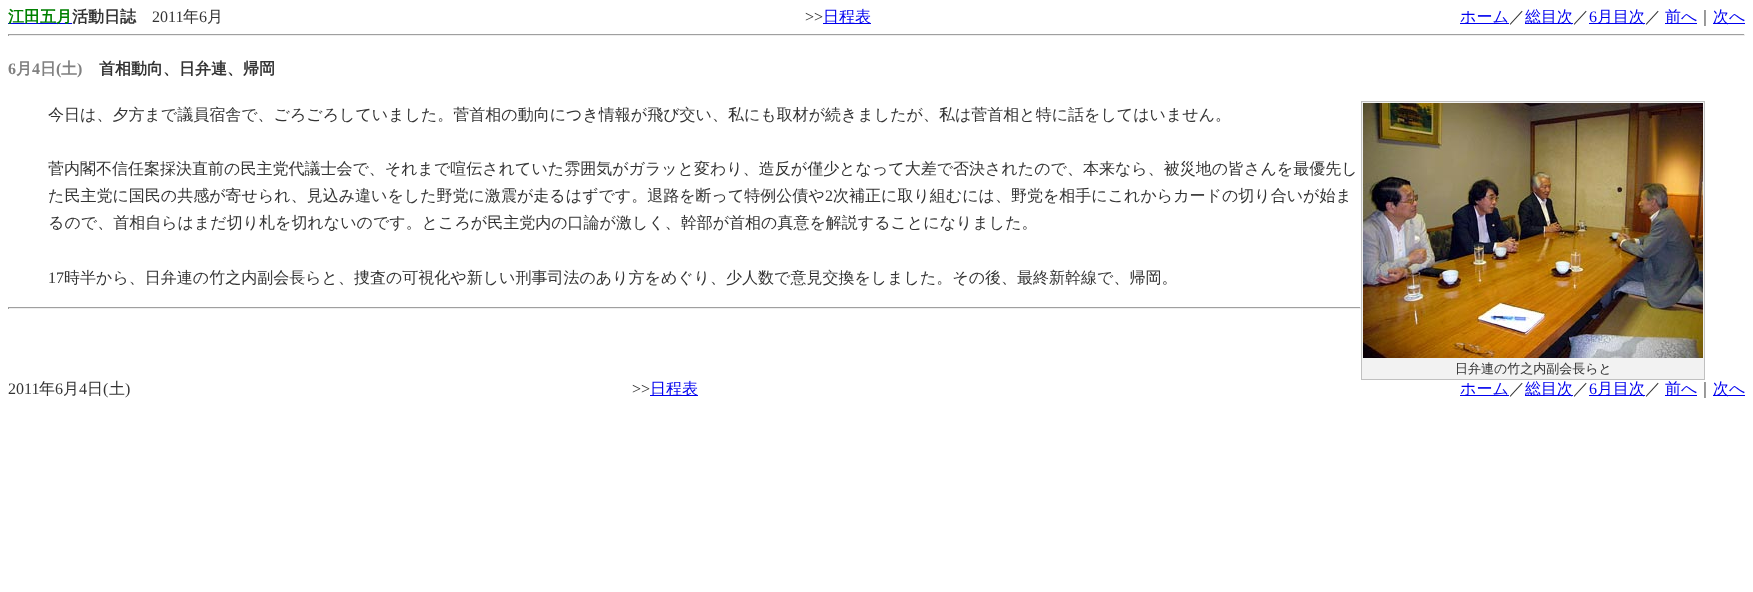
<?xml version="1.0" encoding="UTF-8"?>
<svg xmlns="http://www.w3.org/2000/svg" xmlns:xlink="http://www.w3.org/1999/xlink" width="1753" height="592">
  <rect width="100%" height="100%" fill="#ffffff" />
  <rect x="8" y="23" width="64" height="1" fill="#0000ee" />
  <rect x="823" y="23" width="48" height="1" fill="#0000ee" />
  <rect x="1460" y="23" width="49" height="1" fill="#0000ee" />
  <rect x="1525" y="23" width="48" height="1" fill="#0000ee" />
  <rect x="1589" y="23" width="56" height="1" fill="#0000ee" />
  <rect x="1665" y="23" width="32" height="1" fill="#0000ee" />
  <rect x="1713" y="23" width="32" height="1" fill="#0000ee" />
  <rect x="8" y="34" width="1737" height="1" fill="#9f9f9f" />
  <rect x="1744" y="34" width="1" height="2" fill="#eeeeee" />
  <rect x="8" y="35" width="1737" height="1" fill="#eeeeee" />
  <rect x="8" y="34" width="1" height="2" fill="#9f9f9f" />
  <rect x="1361" y="101" width="344" height="279" fill="#c0c0c0" />
  <rect x="1362" y="102" width="342" height="277" fill="#f2f2f2" />
  <image x="1363" y="103" width="340" height="255" xlink:href="image1.png" />
  <rect x="8" y="307" width="1353" height="1" fill="#9f9f9f" />
  <rect x="1360" y="307" width="1" height="2" fill="#eeeeee" />
  <rect x="8" y="308" width="1353" height="1" fill="#eeeeee" />
  <rect x="8" y="307" width="1" height="2" fill="#9f9f9f" />
  <rect x="650" y="395" width="48" height="1" fill="#0000ee" />
  <rect x="1460" y="395" width="49" height="1" fill="#0000ee" />
  <rect x="1525" y="395" width="48" height="1" fill="#0000ee" />
  <rect x="1589" y="395" width="56" height="1" fill="#0000ee" />
  <rect x="1665" y="395" width="32" height="1" fill="#0000ee" />
  <rect x="1713" y="395" width="32" height="1" fill="#0000ee" />
  <text x="8" y="22" style="font-family: WenQuanYi Zen Hei; font-size: 16px; font-weight: bold; fill: #008000">江田五月</text>
  <text x="72" y="22" style="font-family: WenQuanYi Zen Hei; font-size: 16px; font-weight: bold; fill: #333333">活動日誌</text>
  <text x="152" y="22" style="font-family: Liberation Serif; font-size: 16px; fill: #333333">2011</text>
  <text x="183" y="22" style="font-family: WenQuanYi Zen Hei; font-size: 16px; font-weight: 500; fill: #333333">年</text>
  <text x="199" y="22" style="font-family: Liberation Serif; font-size: 16px; fill: #333333">6</text>
  <text x="207" y="22" style="font-family: WenQuanYi Zen Hei; font-size: 16px; font-weight: 500; fill: #333333">月</text>
  <text x="805" y="22" style="font-family: Liberation Serif; font-size: 16px; fill: #333333">&gt;&gt;</text>
  <text x="823" y="22" style="font-family: WenQuanYi Zen Hei; font-size: 16px; font-weight: 500; fill: #0000ee">日程表</text>
  <text x="1460" y="22" style="font-family: WenQuanYi Zen Hei; font-size: 16px; font-weight: 500; fill: #0000ee">ホーム</text>
  <text x="1509" y="22" style="font-family: WenQuanYi Zen Hei; font-size: 16px; font-weight: 500; fill: #333333">／</text>
  <text x="1525" y="22" style="font-family: WenQuanYi Zen Hei; font-size: 16px; font-weight: 500; fill: #0000ee">総目次</text>
  <text x="1573" y="22" style="font-family: WenQuanYi Zen Hei; font-size: 16px; font-weight: 500; fill: #333333">／</text>
  <text x="1589" y="22" style="font-family: Liberation Serif; font-size: 16px; fill: #0000ee">6</text>
  <text x="1597" y="22" style="font-family: WenQuanYi Zen Hei; font-size: 16px; font-weight: 500; fill: #0000ee">月目次</text>
  <text x="1645" y="22" style="font-family: WenQuanYi Zen Hei; font-size: 16px; font-weight: 500; fill: #333333">／</text>
  <text x="1665" y="22" style="font-family: WenQuanYi Zen Hei; font-size: 16px; font-weight: 500; fill: #0000ee">前へ</text>
  <text x="1697" y="22" style="font-family: WenQuanYi Zen Hei; font-size: 16px; font-weight: 500; fill: #333333">｜</text>
  <text x="1713" y="22" style="font-family: WenQuanYi Zen Hei; font-size: 16px; font-weight: 500; fill: #0000ee">次へ</text>
  <text x="8" y="74" style="font-family: Liberation Serif; font-size: 16px; font-weight: bold; fill: #808080">6</text>
  <text x="16" y="74" style="font-family: WenQuanYi Zen Hei; font-size: 16px; font-weight: bold; fill: #808080">月</text>
  <text x="32" y="74" style="font-family: Liberation Serif; font-size: 16px; font-weight: bold; fill: #808080">4</text>
  <text x="40" y="74" style="font-family: WenQuanYi Zen Hei; font-size: 16px; font-weight: bold; fill: #808080">日</text>
  <text x="56" y="74" style="font-family: Liberation Serif; font-size: 16px; font-weight: bold; fill: #808080">(</text>
  <text x="61" y="74" style="font-family: WenQuanYi Zen Hei; font-size: 16px; font-weight: bold; fill: #808080">土</text>
  <text x="77" y="74" style="font-family: Liberation Serif; font-size: 16px; font-weight: bold; fill: #808080">)</text>
  <text x="99" y="74" style="font-family: WenQuanYi Zen Hei; font-size: 16px; font-weight: bold; fill: #333333">首相動向、日弁連、帰岡</text>
  <text x="48" y="120" style="font-family: WenQuanYi Zen Hei; font-size: 16px; font-weight: 500; fill: #333333">今日は、夕方まで議員宿舎で、ごろごろしていました。菅首相の動向につき情報が飛び交い、私にも取材が続きましたが、私は菅首相と特に話をしてはいません。</text>
  <text x="48" y="174" style="font-family: WenQuanYi Zen Hei; font-size: 16px; font-weight: 500; fill: #333333">菅内閣不信任案採決直前の民主党代議士会で、それまで喧伝されていた雰囲気がガラッと変わり、造反が僅少となって大差で否決されたので、本来なら、被災地の皆さんを最優先し</text>
  <text x="48" y="201" style="font-family: WenQuanYi Zen Hei; font-size: 16px; font-weight: 500; fill: #333333">た民主党に国民の共感が寄せられ、見込み違いをした野党に激震が走るはずです。退路を断って特例公債や</text>
  <text x="825" y="201" style="font-family: Liberation Serif; font-size: 16px; fill: #333333">2</text>
  <text x="833" y="201" style="font-family: WenQuanYi Zen Hei; font-size: 16px; font-weight: 500; fill: #333333">次補正に取り組むには、野党を相手にこれからカードの切り合いが始ま</text>
  <text x="48" y="228" style="font-family: WenQuanYi Zen Hei; font-size: 16px; font-weight: 500; fill: #333333">るので、首相自らはまだ切り札を切れないのです。ところが民主党内の口論が激しく、幹部が首相の真意を解説することになりました。</text>
  <text x="48" y="283" style="font-family: Liberation Serif; font-size: 16px; fill: #333333">17</text>
  <text x="64" y="283" style="font-family: WenQuanYi Zen Hei; font-size: 16px; font-weight: 500; fill: #333333">時半から、日弁連の竹之内副会長らと、捜査の可視化や新しい刑事司法のあり方をめぐり、少人数で意見交換をしました。その後、最終新幹線で、帰岡。</text>
  <text x="1455" y="373" style="font-family: WenQuanYi Zen Hei; font-size: 13px; font-weight: 500; fill: #333333">日弁連の竹之内副会長らと</text>
  <text x="8" y="394" style="font-family: Liberation Serif; font-size: 16px; fill: #333333">2011</text>
  <text x="39" y="394" style="font-family: WenQuanYi Zen Hei; font-size: 16px; font-weight: 500; fill: #333333">年</text>
  <text x="55" y="394" style="font-family: Liberation Serif; font-size: 16px; fill: #333333">6</text>
  <text x="63" y="394" style="font-family: WenQuanYi Zen Hei; font-size: 16px; font-weight: 500; fill: #333333">月</text>
  <text x="79" y="394" style="font-family: Liberation Serif; font-size: 16px; fill: #333333">4</text>
  <text x="87" y="394" style="font-family: WenQuanYi Zen Hei; font-size: 16px; font-weight: 500; fill: #333333">日</text>
  <text x="103" y="394" style="font-family: Liberation Serif; font-size: 16px; fill: #333333">(</text>
  <text x="109" y="394" style="font-family: WenQuanYi Zen Hei; font-size: 16px; font-weight: 500; fill: #333333">土</text>
  <text x="125" y="394" style="font-family: Liberation Serif; font-size: 16px; fill: #333333">)</text>
  <text x="632" y="394" style="font-family: Liberation Serif; font-size: 16px; fill: #333333">&gt;&gt;</text>
  <text x="650" y="394" style="font-family: WenQuanYi Zen Hei; font-size: 16px; font-weight: 500; fill: #0000ee">日程表</text>
  <text x="1460" y="394" style="font-family: WenQuanYi Zen Hei; font-size: 16px; font-weight: 500; fill: #0000ee">ホーム</text>
  <text x="1509" y="394" style="font-family: WenQuanYi Zen Hei; font-size: 16px; font-weight: 500; fill: #333333">／</text>
  <text x="1525" y="394" style="font-family: WenQuanYi Zen Hei; font-size: 16px; font-weight: 500; fill: #0000ee">総目次</text>
  <text x="1573" y="394" style="font-family: WenQuanYi Zen Hei; font-size: 16px; font-weight: 500; fill: #333333">／</text>
  <text x="1589" y="394" style="font-family: Liberation Serif; font-size: 16px; fill: #0000ee">6</text>
  <text x="1597" y="394" style="font-family: WenQuanYi Zen Hei; font-size: 16px; font-weight: 500; fill: #0000ee">月目次</text>
  <text x="1645" y="394" style="font-family: WenQuanYi Zen Hei; font-size: 16px; font-weight: 500; fill: #333333">／</text>
  <text x="1665" y="394" style="font-family: WenQuanYi Zen Hei; font-size: 16px; font-weight: 500; fill: #0000ee">前へ</text>
  <text x="1697" y="394" style="font-family: WenQuanYi Zen Hei; font-size: 16px; font-weight: 500; fill: #333333">｜</text>
  <text x="1713" y="394" style="font-family: WenQuanYi Zen Hei; font-size: 16px; font-weight: 500; fill: #0000ee">次へ</text>
</svg>
